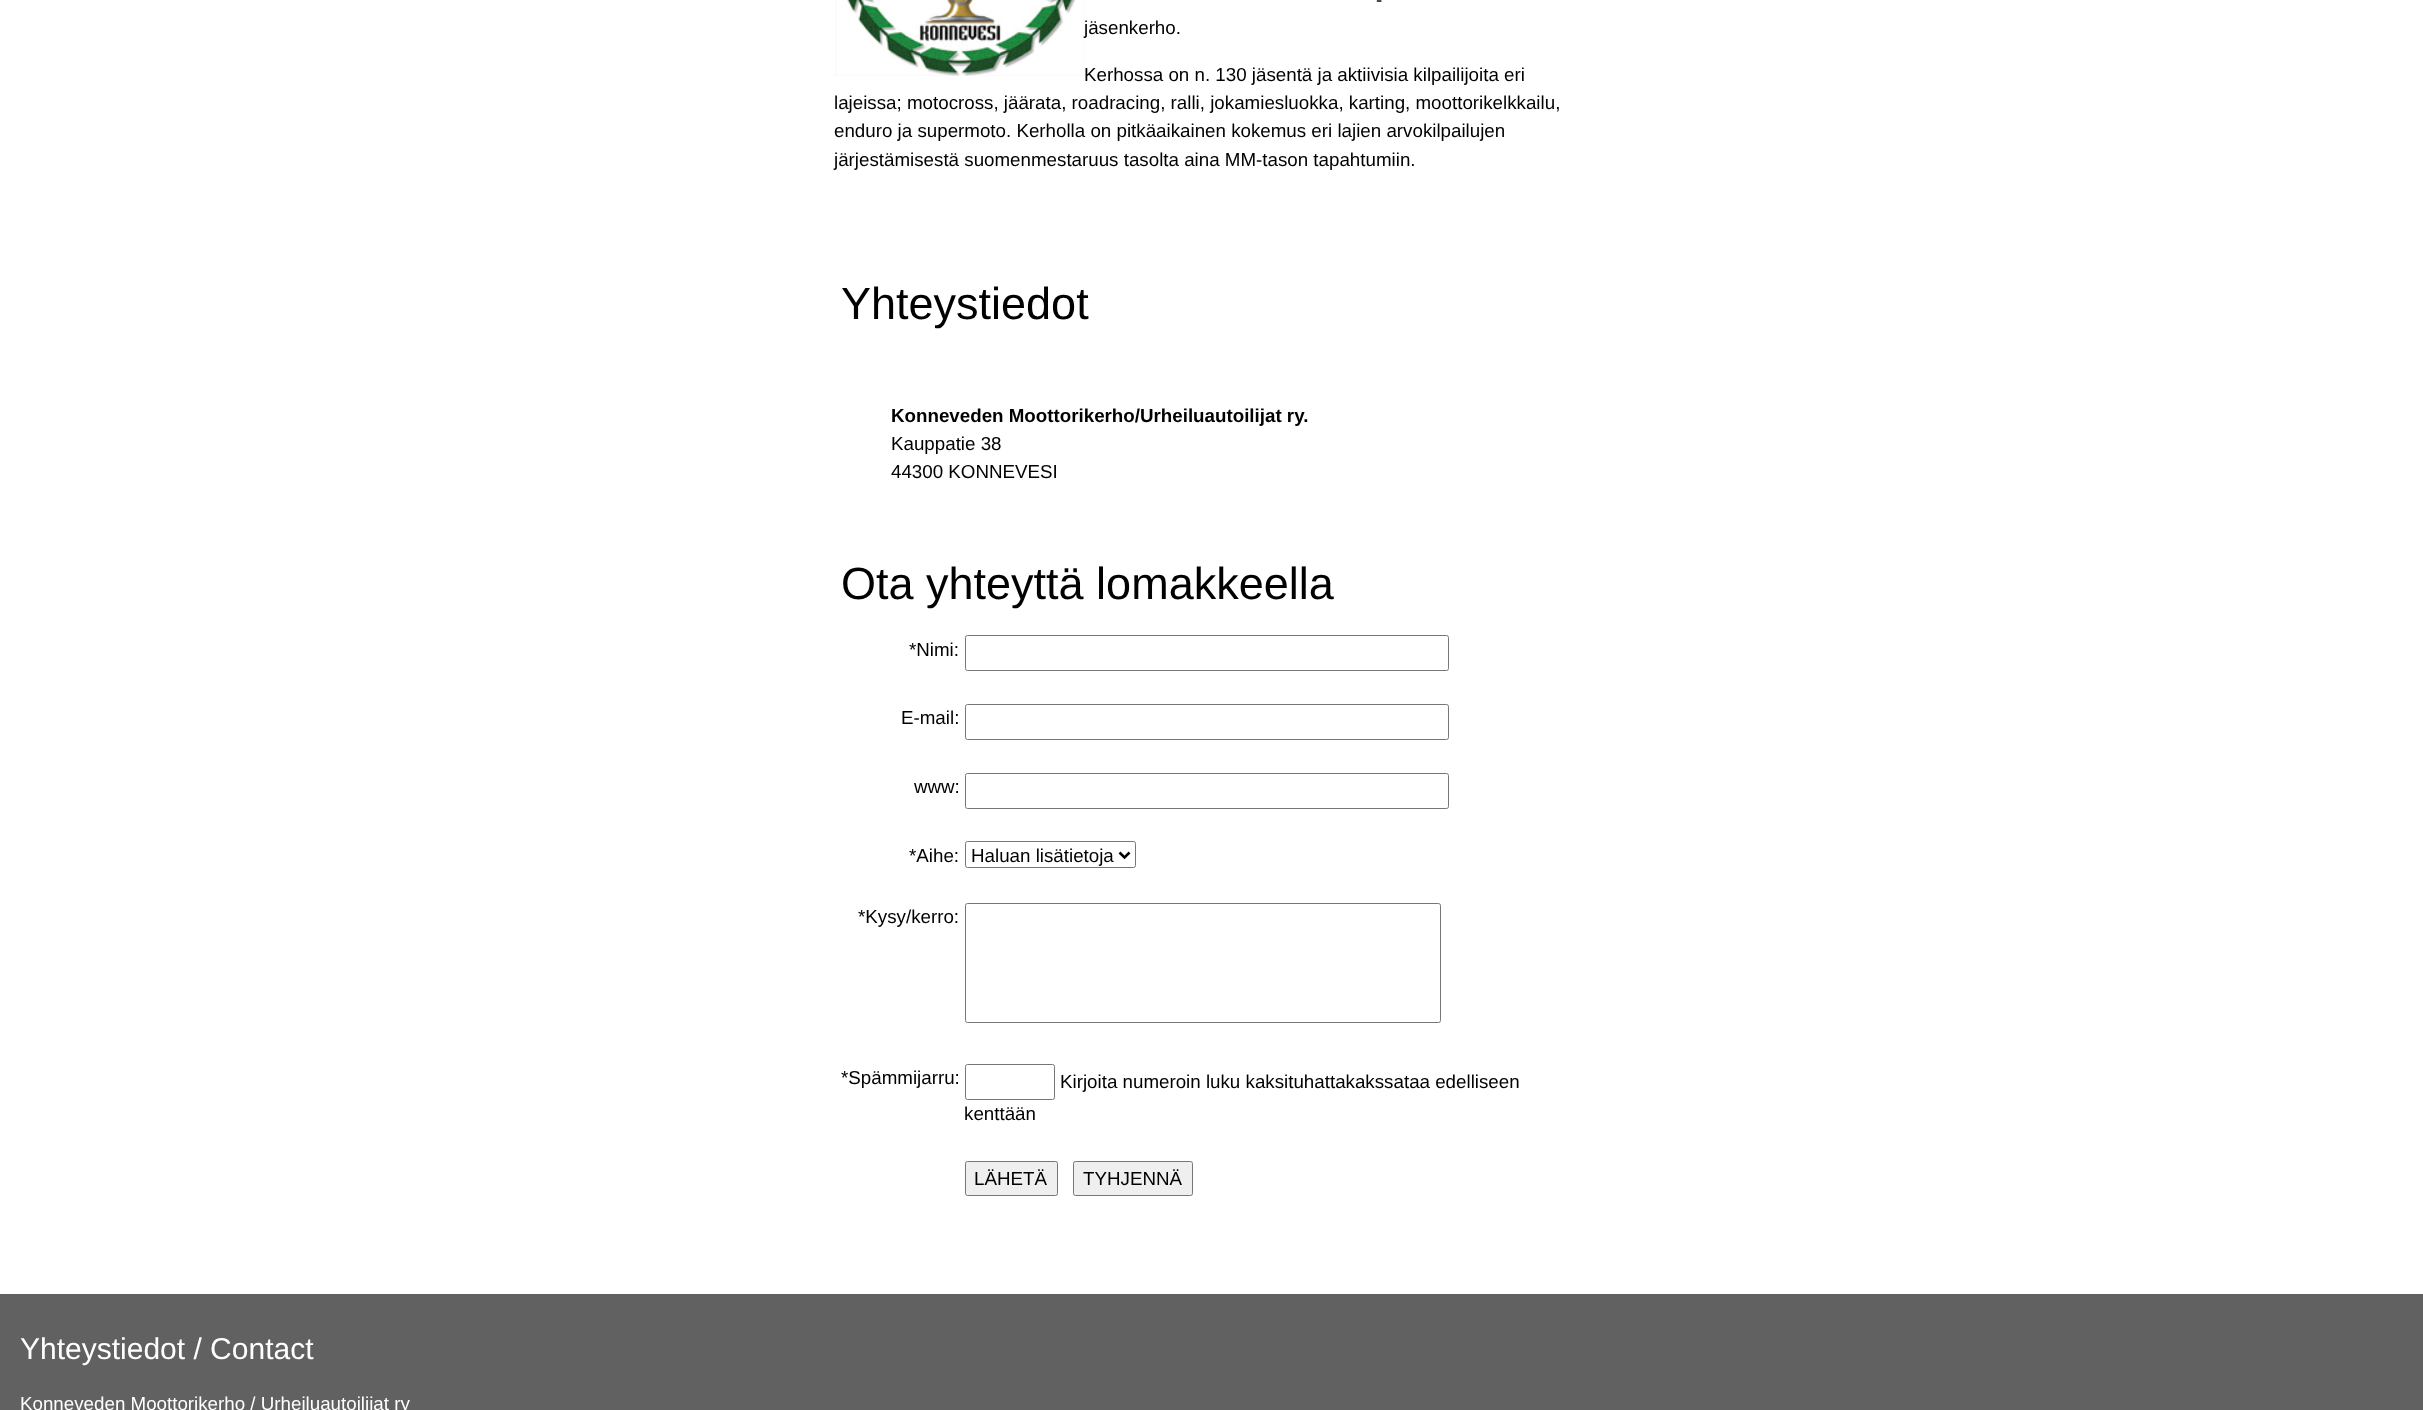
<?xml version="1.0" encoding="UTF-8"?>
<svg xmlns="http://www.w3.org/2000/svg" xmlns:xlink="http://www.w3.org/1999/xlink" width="2423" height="1410">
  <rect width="100%" height="100%" fill="#ffffff" />
  <image x="835" y="0" width="250" height="76" xlink:href="image1.png" />
  <rect x="965.5" y="635.5" width="483" height="35" rx="2" fill="none" stroke="#767676" />
  <rect x="965.5" y="704.5" width="483" height="35" rx="2" fill="none" stroke="#767676" />
  <rect x="965.5" y="773.5" width="483" height="35" rx="2" fill="none" stroke="#767676" />
  <rect x="965.5" y="841.5" width="170" height="26" rx="2" fill="none" stroke="#767676" />
  <path d="M 1119.5 852.5 l 5 5 l 5 -5" fill="none" stroke="#000000" stroke-width="2.5" />
  <rect x="965.5" y="903.5" width="475" height="119" rx="2" fill="none" stroke="#767676" />
  <rect x="965.5" y="1064.5" width="89" height="35" rx="2" fill="none" stroke="#767676" />
  <rect x="965.5" y="1161.5" width="92" height="34" rx="2" fill="#efefef" stroke="#767676" />
  <rect x="1073.5" y="1161.5" width="119" height="34" rx="2" fill="#efefef" stroke="#767676" />
  <rect y="1294" width="2423" height="116" fill="#616161" />
  <text x="1376" y="6" style="font-family: Liberation Sans; font-size: 18.75px; fill: #000000">-</text>
  <text x="1084" y="34" style="font-family: Liberation Sans; font-size: 18.75px; fill: #000000">jäsenkerho.</text>
  <text x="1084" y="81" style="font-family: Liberation Sans; font-size: 18.75px; fill: #000000">Kerhossa on n. 130 jäsentä ja aktiivisia kilpailijoita eri</text>
  <text x="834" y="109" style="font-family: Liberation Sans; font-size: 18.75px; fill: #000000">lajeissa; motocross, jäärata, roadracing, ralli, jokamiesluokka, karting, moottorikelkkailu,</text>
  <text x="834" y="137" style="font-family: Liberation Sans; font-size: 18.75px; fill: #000000">enduro ja supermoto. Kerholla on pitkäaikainen kokemus eri lajien arvokilpailujen</text>
  <text x="834" y="166" style="font-family: Liberation Sans; font-size: 18.75px; fill: #000000">järjestämisestä suomenmestaruus tasolta aina MM-tason tapahtumiin.</text>
  <text x="841" y="319" style="font-family: Liberation Sans; font-size: 45px; fill: #000000">Yhteystiedot</text>
  <text x="891" y="422" style="font-family: Liberation Sans; font-size: 18.75px; font-weight: bold; fill: #000000">Konneveden Moottorikerho/Urheiluautoilijat ry.</text>
  <text x="891" y="450" style="font-family: Liberation Sans; font-size: 18.75px; fill: #000000">Kauppatie 38</text>
  <text x="891" y="478" style="font-family: Liberation Sans; font-size: 18.75px; fill: #000000">44300 KONNEVESI</text>
  <text x="841" y="599" style="font-family: Liberation Sans; font-size: 45px; fill: #000000">Ota yhteyttä lomakkeella</text>
  <text x="909" y="656" style="font-family: Liberation Sans; font-size: 18.75px; fill: #000000">*Nimi:</text>
  <text x="901" y="724" style="font-family: Liberation Sans; font-size: 18.75px; fill: #000000">E-mail:</text>
  <text x="914" y="793" style="font-family: Liberation Sans; font-size: 18.75px; fill: #000000">www:</text>
  <text x="909" y="862" style="font-family: Liberation Sans; font-size: 18.75px; fill: #000000">*Aihe:</text>
  <text x="971" y="862" style="font-family: Liberation Sans; font-size: 18.75px; fill: #000000">Haluan lisätietoja</text>
  <text x="858" y="923" style="font-family: Liberation Sans; font-size: 18.75px; fill: #000000">*Kysy/kerro:</text>
  <text x="841" y="1084" style="font-family: Liberation Sans; font-size: 18.75px; fill: #000000">*Spämmijarru:</text>
  <text x="1060" y="1088" style="font-family: Liberation Sans; font-size: 18.75px; fill: #000000">Kirjoita numeroin luku kaksituhattakakssataa edelliseen</text>
  <text x="964" y="1120" style="font-family: Liberation Sans; font-size: 18.75px; fill: #000000">kenttään</text>
  <text x="974" y="1185" style="font-family: Liberation Sans; font-size: 18.75px; fill: #000000">LÄHETÄ</text>
  <text x="1083" y="1185" style="font-family: Liberation Sans; font-size: 18.75px; fill: #000000">TYHJENNÄ</text>
  <text x="20" y="1359" style="font-family: Liberation Sans; font-size: 30px; fill: #ffffff">Yhteystiedot / Contact</text>
  <text x="20" y="1410" style="font-family: Liberation Sans; font-size: 18.75px; fill: #ffffff">Konneveden Moottorikerho / Urheiluautoilijat ry</text>
</svg>
